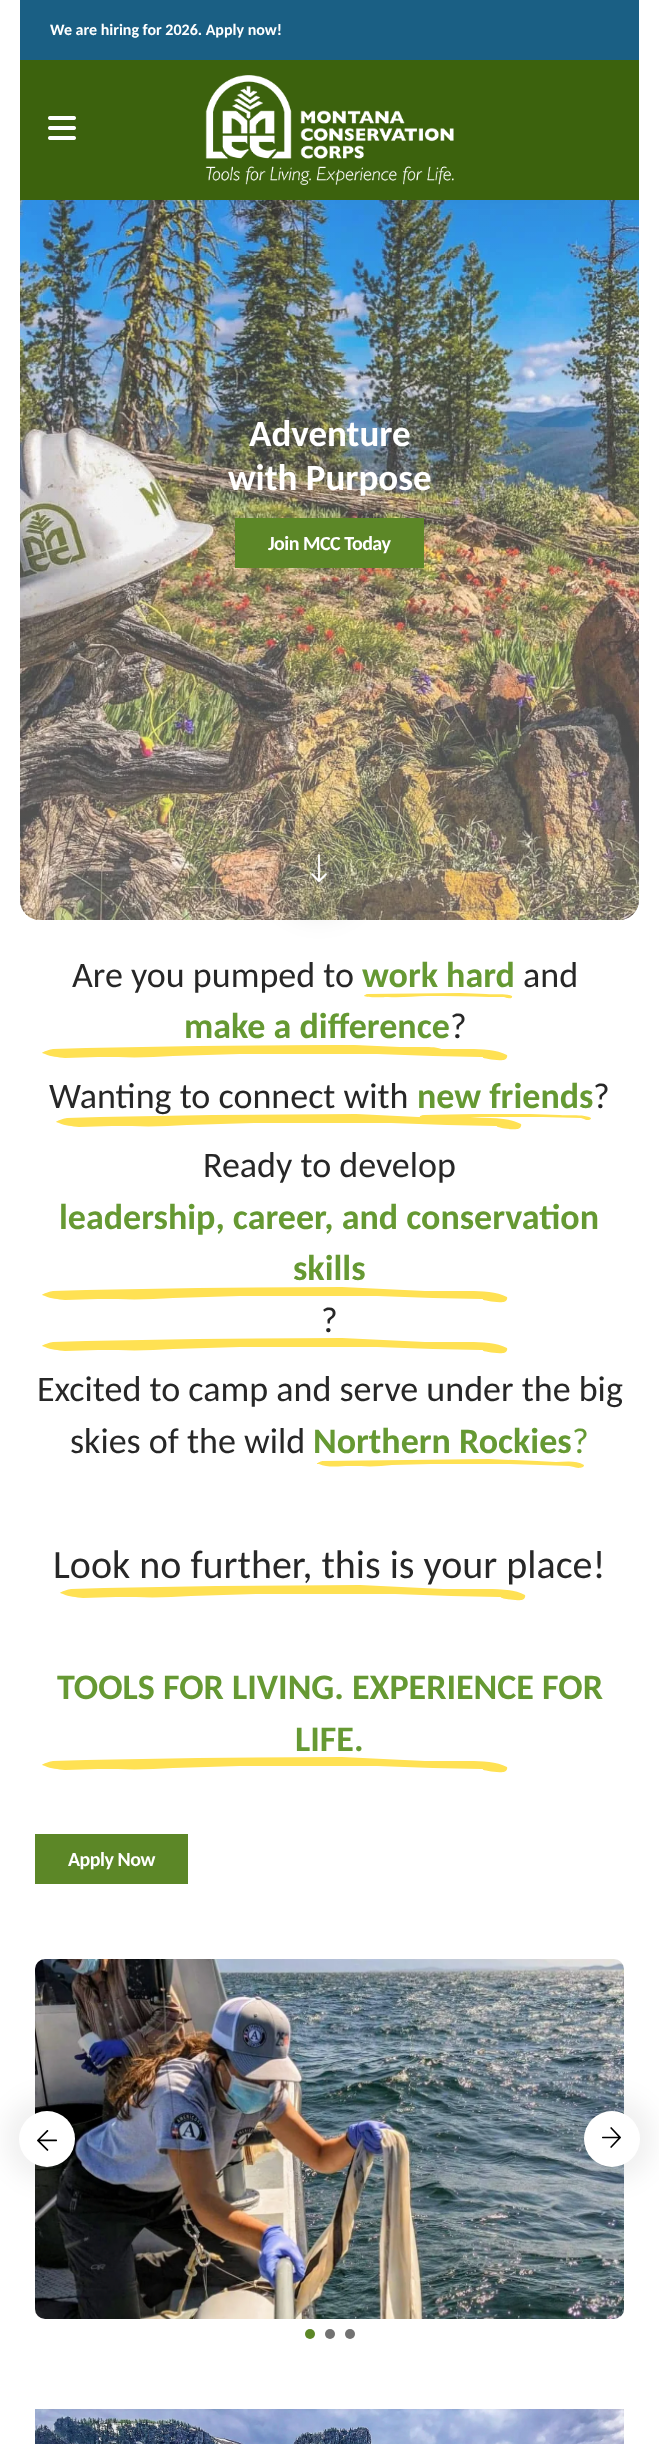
<?xml version="1.0" encoding="UTF-8"?>
<svg xmlns="http://www.w3.org/2000/svg" xmlns:xlink="http://www.w3.org/1999/xlink" width="659" height="2444">
  <defs>
    <linearGradient id="g1" gradientUnits="userSpaceOnUse" x1="329" y1="60" x2="330" y2="920"><stop offset="0" stop-color="#ffffff" stop-opacity="0.55" /><stop offset="0.1" stop-color="#ffffff" stop-opacity="0.17" /><stop offset="1" stop-color="#ffffff" stop-opacity="0.33" /></linearGradient>
    <clipPath id="clip1"><path d="M 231 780 h 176 v 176 h -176 z m 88 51 c 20.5 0 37 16.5 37 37 c 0 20.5 -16.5 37 -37 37 c -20.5 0 -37 -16.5 -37 -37 c 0 -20.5 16.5 -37 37 -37 z" clip-rule="evenodd" /></clipPath>
  </defs>
  <rect width="100%" height="100%" fill="#ffffff" />
  <rect x="20" width="619" height="60" fill="#1a5f84" />
  <image x="20" y="200" width="619" height="720" xlink:href="image3.png" />
  <path d="M 20 60 h 619 v 840 c 0 11 -9 20 -20 20 h -579 c -11 0 -20 -9 -20 -20 z" fill="url(#g1)" />
  <rect x="20" y="60" width="619" height="140" fill="#3c620d" />
  <image x="48" y="116" width="28" height="24" xlink:href="image1.png" />
  <image x="205" y="75" width="249" height="110" xlink:href="image2.png" />
  <rect x="235" y="518" width="189" height="50" fill="#5c8727" />
  <g clip-path="url(#clip1)">
    <rect x="268" y="817" width="102" height="102" rx="51" fill="#000000" fill-opacity="0.06" filter="blur(12px)" />
  </g>
  <image x="311" y="854" width="16" height="29" xlink:href="image4.png" />
  <path d="M 504 997 h -15 c -21 -1 -41 -1 -62 -1 c -13 0 -26 2 -39 1 c -3 0 -21 1 -24 -1 c 0 -1 3 -2 4 -2 l 92 -1 l 26 1 c 8 1 20 -1 26 2 c 1 3 -4 2 -5 2 z" fill="#ffe153" />
  <path d="M 481 1057 l -48 -1 l -56 -2 h -137 l -67 2 c -19 1 -36 2 -55 1 h -20 c -11 0 -22 1 -33 1 c -7 -1 -14 -1 -20 -4 l -3 -1 c 0 -1 9 -4 11 -4 l 33 -1 l 112 -2 l 144 -1 l 83 4 h 33 c 15 0 36 -1 49 6 c 1 3 -2 5 -4 5 c -7 1 -23 -2 -20 -3 z" fill="#ffe153" />
  <path d="M 431 1052 l -27 -1 l -31 -1 h -75 l -38 1 c -10 1 -20 1 -30 1 l -11 -1 c -5 1 -27 3 -31 -1 c -1 -2 5 -3 6 -3 l 80 -1 l 80 -1 l 46 2 h 18 c 9 0 20 -1 28 4 c 0 4 -9 2 -10 2 z" fill="#ffe153" />
  <path d="M 495 1126 l -48 -1 l -56 -2 h -137 l -67 2 c -19 1 -36 2 -55 1 h -20 c -11 0 -22 1 -33 1 c -7 -1 -14 -1 -20 -4 l -3 -1 c 0 -1 9 -4 11 -4 l 33 -1 l 112 -2 l 144 -1 l 83 4 h 33 c 15 0 36 -1 49 6 c 1 3 -2 5 -4 5 c -7 1 -23 -2 -20 -3 z" fill="#ffe153" />
  <path d="M 581 1118 l -38 -1 h -51 c -14 0 -30 2 -44 2 c -5 -1 -26 1 -28 -2 c -1 -1 3 -2 4 -2 l 53 -1 h 53 l 30 1 c 9 1 24 -1 31 3 c 0 3 -6 2 -7 1 z" fill="#ffe153" />
  <path d="M 481 1299 l -48 -1 l -56 -2 h -137 l -67 2 c -19 1 -36 2 -55 1 h -20 c -11 0 -22 1 -33 1 c -7 -1 -14 -1 -20 -4 l -3 -1 c 0 -1 9 -4 11 -4 l 33 -1 l 112 -2 l 144 -1 l 83 4 h 33 c 15 0 36 -1 49 6 c 1 3 -2 5 -4 5 c -7 1 -23 -2 -20 -3 z" fill="#ffe153" />
  <path d="M 481 1350 l -48 -1 l -56 -2 h -137 l -67 2 c -19 1 -36 2 -55 1 h -20 c -11 0 -22 1 -33 1 c -7 -1 -14 -1 -20 -4 l -3 -1 c 0 -1 9 -4 11 -4 l 33 -1 l 112 -2 l 144 -1 l 83 4 h 33 c 15 0 36 -1 49 6 c 1 3 -2 5 -4 5 c -7 1 -23 -2 -20 -3 z" fill="#ffe153" />
  <path d="M 569 1466 l -28 -1 l -32 -1 h -78 l -39 1 c -10 1 -21 2 -31 1 h -12 c -8 0 -22 2 -30 -2 h -2 c -1 -1 5 -3 6 -3 l 84 -1 l 82 -1 l 48 2 l 19 1 c 9 0 20 -2 28 3 c 0 4 -9 3 -10 2 z" fill="#ffe153" />
  <path d="M 499 1597 l -48 -1 l -56 -2 h -137 l -67 2 c -19 1 -36 2 -55 1 h -20 c -11 0 -22 1 -33 1 c -7 -1 -14 -1 -20 -4 l -3 -1 c 0 -1 9 -4 11 -4 l 33 -1 l 112 -2 l 144 -1 l 83 4 h 33 c 15 0 36 -1 49 6 c 1 3 -2 5 -4 5 c -7 1 -23 -2 -20 -3 z" fill="#ffe153" />
  <path d="M 481 1769 l -48 -1 l -56 -2 h -137 l -67 2 c -19 1 -36 2 -55 1 h -20 c -11 0 -22 1 -33 1 c -7 -1 -14 -1 -20 -4 l -3 -1 c 0 -1 9 -4 11 -4 l 33 -1 l 112 -2 l 144 -1 l 83 4 h 33 c 15 0 36 -1 49 6 c 1 3 -2 5 -4 5 c -7 1 -23 -2 -20 -3 z" fill="#ffe153" />
  <rect x="35" y="1834" width="153" height="50" fill="#5c8727" />
  <image x="35" y="1959" width="589" height="360" xlink:href="image5.png" />
  <rect x="5" y="2097" width="84" height="84" rx="42" fill="#000000" fill-opacity="0.06" filter="blur(12px)" />
  <circle cx="47" cy="2139" r="28" fill="#ffffff" />
  <image x="37" y="2130" width="20" height="21" xlink:href="image6.png" />
  <rect x="570" y="2097" width="84" height="84" rx="42" fill="#000000" fill-opacity="0.06" filter="blur(12px)" />
  <circle cx="612" cy="2139" r="28" fill="#ffffff" />
  <image x="602" y="2127" width="19" height="21" xlink:href="image7.png" />
  <circle cx="310" cy="2334" r="5" fill="#5c8727" />
  <circle cx="330" cy="2334" r="5" fill="#727272" />
  <circle cx="350" cy="2334" r="5" fill="#727272" />
  <image x="35" y="2409" width="589" height="35" xlink:href="image8.png" />
  <text x="50" y="35" style="font-family: Carlito; font-size: 16px; font-weight: bold; fill: #ffffff">We are hiring for 2026. Apply now!</text>
  <text x="249" y="446" style="font-family: Carlito; font-size: 37px; font-weight: bold; fill: #ffffff">Adventure</text>
  <text x="228" y="490" style="font-family: Carlito; font-size: 37px; font-weight: bold; fill: #ffffff">with Purpose</text>
  <text x="268" y="550" style="font-family: Carlito; font-size: 20px; font-weight: bold; letter-spacing: -0.5px; fill: #ffffff">Join MCC Today</text>
  <text x="72" y="987" style="font-family: Carlito; font-size: 36px; fill: #272727">Are you pumped to</text>
  <text x="362" y="987" style="font-family: Carlito; font-size: 36px; font-weight: bold; fill: #669933">work hard</text>
  <text x="523" y="987" style="font-family: Carlito; font-size: 36px; fill: #272727">and</text>
  <text x="184" y="1038" style="font-family: Carlito; font-size: 36px; font-weight: bold; fill: #669933">make a difference</text>
  <text x="450" y="1038" style="font-family: Carlito; font-size: 36px; fill: #272727">?</text>
  <text x="49" y="1108" style="font-family: Carlito; font-size: 36px; fill: #272727">Wanting to connect with</text>
  <text x="417" y="1108" style="font-family: Carlito; font-size: 36px; font-weight: bold; fill: #669933">new friends</text>
  <text x="593" y="1108" style="font-family: Carlito; font-size: 36px; fill: #272727">?</text>
  <text x="203" y="1177" style="font-family: Carlito; font-size: 36px; fill: #272727">Ready to develop</text>
  <text x="59" y="1229" style="font-family: Carlito; font-size: 36px; font-weight: bold; fill: #669933">leadership, career, and conservation</text>
  <text x="293" y="1280" style="font-family: Carlito; font-size: 36px; font-weight: bold; fill: #669933">skills</text>
  <text x="321" y="1332" style="font-family: Carlito; font-size: 36px; fill: #272727">?</text>
  <text x="37" y="1401" style="font-family: Carlito; font-size: 36px; fill: #272727">Excited to camp and serve under the big</text>
  <text x="70" y="1453" style="font-family: Carlito; font-size: 36px; fill: #272727">skies of the wild</text>
  <text x="313" y="1453" style="font-family: Carlito; font-size: 36px; font-weight: bold; fill: #669933">Northern Rockies</text>
  <text x="572" y="1453" style="font-family: Carlito; font-size: 36px; fill: #669933">?</text>
  <text x="53" y="1578" style="font-family: Carlito; font-size: 40px; fill: #272727">Look no further, this is your place!</text>
  <text x="57" y="1699" style="font-family: Carlito; font-size: 36px; font-weight: bold; fill: #669933">TOOLS FOR LIVING. EXPERIENCE FOR</text>
  <text x="295" y="1751" style="font-family: Carlito; font-size: 36px; font-weight: bold; fill: #669933">LIFE.</text>
  <text x="68" y="1866" style="font-family: Carlito; font-size: 20px; font-weight: bold; letter-spacing: -0.5px; fill: #ffffff">Apply Now</text>
</svg>
